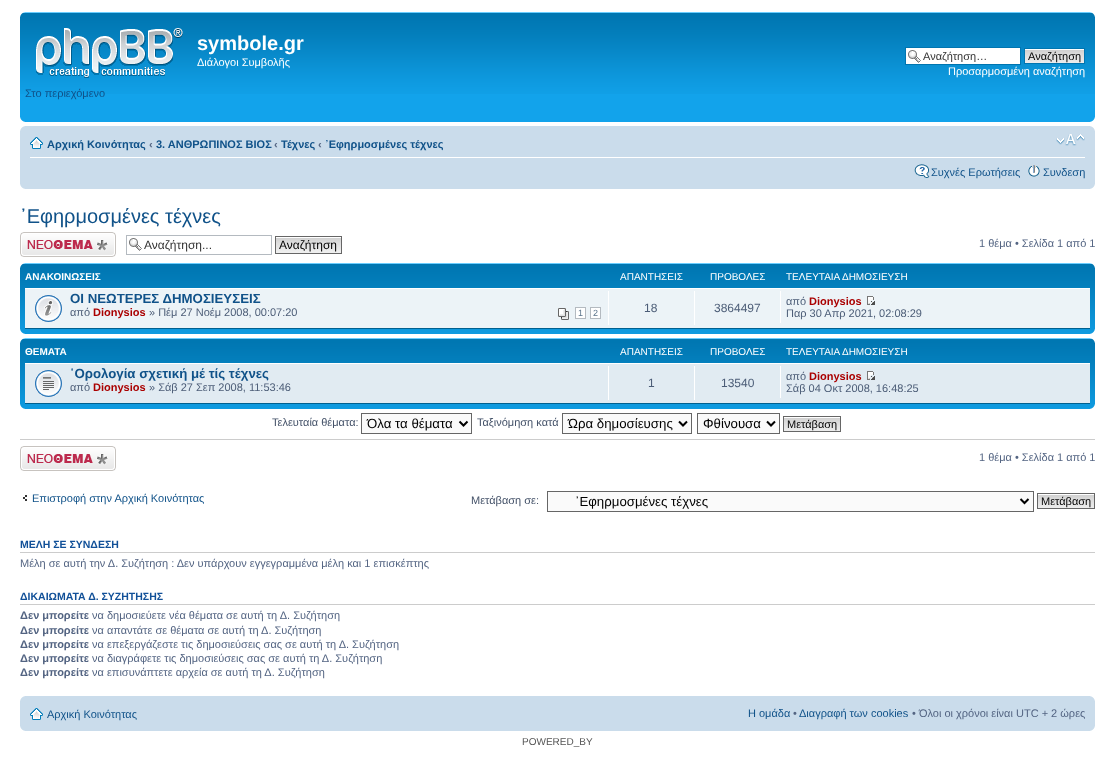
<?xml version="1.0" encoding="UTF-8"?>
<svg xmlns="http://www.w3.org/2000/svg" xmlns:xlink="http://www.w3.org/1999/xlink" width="1115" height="780">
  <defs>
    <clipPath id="clip1"><rect x="923" y="50" width="95" height="12" /></clipPath>
  </defs>
  <rect width="100%" height="100%" fill="#ffffff" />
  <rect x="20" y="94" width="1075" height="28" fill="#12a3eb" />
  <image x="20" y="12" width="1075" height="82" xlink:href="image1.png" />
  <image x="20" y="12" width="5" height="5" xlink:href="image2.png" />
  <image x="1090" y="12" width="5" height="5" xlink:href="image3.png" />
  <image x="36" y="28" width="147" height="50" xlink:href="image4.png" />
  <rect x="906" y="48" width="114" height="16" fill="#ffffff" />
  <image x="908" y="50" width="13" height="13" xlink:href="image5.png" />
  <rect x="905.5" y="47.5" width="115" height="17" fill="none" stroke="#0075b0" />
  <image x="1025" y="49" width="59" height="14" xlink:href="image6.png" />
  <rect x="1024.5" y="48.5" width="60" height="15" fill="none" stroke="#0075b0" />
  <image x="20" y="117" width="5" height="5" xlink:href="image7.png" />
  <image x="1090" y="117" width="5" height="5" xlink:href="image8.png" />
  <rect x="20" y="126" width="1075" height="63" fill="#cadceb" />
  <image x="20" y="126" width="5" height="5" xlink:href="image9.png" />
  <image x="1090" y="126" width="5" height="5" xlink:href="image10.png" />
  <rect x="30" y="157" width="1055" height="1" fill="#ffffff" />
  <image x="30" y="137" width="13" height="12" xlink:href="image11.png" />
  <image x="1056" y="134" width="29" height="12" xlink:href="image12.png" />
  <image x="914" y="164" width="16" height="14" xlink:href="image13.png" />
  <image x="1028" y="165" width="12" height="12" xlink:href="image14.png" />
  <image x="20" y="184" width="5" height="5" xlink:href="image15.png" />
  <image x="1090" y="184" width="5" height="5" xlink:href="image16.png" />
  <image x="20" y="232" width="96" height="25" xlink:href="image17.png" />
  <image x="129" y="238" width="13" height="13" xlink:href="image5.png" />
  <rect x="126.5" y="235.5" width="145" height="19" fill="none" stroke="#b4bac0" />
  <image x="276" y="237" width="65" height="16" xlink:href="image18.png" />
  <rect x="275.5" y="236.5" width="66" height="17" fill="none" stroke="#666666" />
  <image x="20" y="263" width="1075" height="71" xlink:href="image19.png" />
  <image x="20" y="263" width="5" height="5" xlink:href="image2.png" />
  <image x="1090" y="263" width="5" height="5" xlink:href="image3.png" />
  <rect x="25" y="289" width="1065" height="39" fill="#ecf3f7" />
  <rect x="25" y="288" width="1065" height="1" fill="#ffffff" />
  <rect x="25" y="328" width="1065" height="1" fill="#00608f" />
  <image x="35" y="295" width="27" height="27" xlink:href="image20.png" />
  <image x="558" y="308" width="11" height="12" xlink:href="image21.png" />
  <rect x="575.5" y="307.5" width="10" height="11" fill="#ffffff" stroke="#b4bac0" />
  <rect x="590.5" y="307.5" width="10" height="11" fill="#ffffff" stroke="#b4bac0" />
  <rect x="608" y="291" width="1" height="34" fill="#ffffff" />
  <rect x="694" y="291" width="1" height="34" fill="#ffffff" />
  <rect x="780" y="291" width="1" height="32" fill="#ffffff" />
  <image x="867" y="296" width="8" height="9" xlink:href="image22.png" />
  <image x="20" y="329" width="5" height="5" xlink:href="image23.png" />
  <image x="1090" y="329" width="5" height="5" xlink:href="image24.png" />
  <image x="20" y="338" width="1075" height="71" xlink:href="image19.png" />
  <image x="20" y="338" width="5" height="5" xlink:href="image2.png" />
  <image x="1090" y="338" width="5" height="5" xlink:href="image3.png" />
  <rect x="25" y="364" width="1065" height="39" fill="#e1ebf2" />
  <rect x="25" y="363" width="1065" height="1" fill="#ffffff" />
  <rect x="25" y="403" width="1065" height="1" fill="#00608f" />
  <image x="35" y="370" width="27" height="27" xlink:href="image25.png" />
  <rect x="608" y="366" width="1" height="34" fill="#ffffff" />
  <rect x="694" y="366" width="1" height="34" fill="#ffffff" />
  <rect x="780" y="366" width="1" height="32" fill="#ffffff" />
  <image x="867" y="371" width="8" height="9" xlink:href="image26.png" />
  <image x="20" y="404" width="5" height="5" xlink:href="image23.png" />
  <image x="1090" y="404" width="5" height="5" xlink:href="image24.png" />
  <rect x="361.5" y="413.5" width="110" height="20" fill="#fafafa" stroke="#666666" />
  <path d="M 459.5 421.5 l 4 4 l 4 -4" fill="none" stroke="#000000" stroke-width="2" />
  <rect x="562.5" y="413.5" width="129" height="20" fill="#fafafa" stroke="#666666" />
  <path d="M 679 421.5 l 4 4 l 4 -4" fill="none" stroke="#000000" stroke-width="2" />
  <rect x="697.5" y="413.5" width="82" height="20" fill="#fafafa" stroke="#666666" />
  <path d="M 767 421.5 l 4 4 l 4 -4" fill="none" stroke="#000000" stroke-width="2" />
  <image x="784" y="417" width="56" height="14" xlink:href="image27.png" />
  <rect x="783.5" y="416.5" width="57" height="15" fill="none" stroke="#666666" />
  <rect x="20" y="439" width="1075" height="1" fill="#cccccc" />
  <image x="20" y="446" width="96" height="25" xlink:href="image17.png" />
  <image x="23" y="495" width="4" height="6" xlink:href="image28.png" />
  <rect x="547.5" y="491.5" width="486" height="20" fill="#fafafa" stroke="#666666" />
  <path d="M 1020.5 499 l 4 4 l 4 -4" fill="none" stroke="#000000" stroke-width="2" />
  <image x="1038" y="494" width="56" height="14" xlink:href="image27.png" />
  <rect x="1037.5" y="493.5" width="57" height="15" fill="none" stroke="#666666" />
  <rect x="20" y="552" width="1075" height="1" fill="#cccccc" />
  <rect x="20" y="604" width="1075" height="1" fill="#cccccc" />
  <rect x="20" y="696" width="1075" height="35" fill="#cadceb" />
  <image x="20" y="696" width="5" height="5" xlink:href="image9.png" />
  <image x="1090" y="696" width="5" height="5" xlink:href="image10.png" />
  <image x="30" y="708" width="13" height="12" xlink:href="image11.png" />
  <image x="20" y="726" width="5" height="5" xlink:href="image15.png" />
  <image x="1090" y="726" width="5" height="5" xlink:href="image16.png" />
  <text x="197" y="50" style="font-family: Liberation Sans; font-size: 20px; font-weight: bold; fill: #ffffff">symbole.gr</text>
  <text x="197" y="66" style="font-family: Liberation Sans; font-size: 11px; fill: #ffffff">Διάλογοι Συμβολῆς</text>
  <text x="25" y="97" style="font-family: Liberation Sans; font-size: 11px; fill: #105289">Στο περιεχόμενο</text>
  <g clip-path="url(#clip1)">
    <text x="923" y="60" style="font-family: Liberation Sans; font-size: 11px; fill: #333333">Αναζήτηση…</text>
  </g>
  <text x="1028" y="60" style="font-family: Liberation Sans; font-size: 11px; fill: #000000">Αναζήτηση</text>
  <text x="948" y="75" style="font-family: Liberation Sans; font-size: 11px; fill: #ffffff">Προσαρμοσμένη αναζήτηση</text>
  <text x="47" y="148" style="font-family: Liberation Sans; font-size: 11px; font-weight: bold; fill: #105289">Αρχική Κοινότητας</text>
  <text x="149" y="148" style="font-family: Liberation Sans; font-size: 11px; font-weight: bold; fill: #536482">‹</text>
  <text x="156" y="148" style="font-family: Liberation Sans; font-size: 11px; font-weight: bold; fill: #105289">3. ΑΝΘΡΩΠΙΝΟΣ ΒΙΟΣ</text>
  <text x="274" y="148" style="font-family: Liberation Sans; font-size: 11px; font-weight: bold; fill: #536482">‹</text>
  <text x="281" y="148" style="font-family: Liberation Sans; font-size: 11px; font-weight: bold; fill: #105289">Τέχνες</text>
  <text x="318" y="148" style="font-family: Liberation Sans; font-size: 11px; font-weight: bold; fill: #536482">‹</text>
  <text x="325" y="148" style="font-family: Liberation Sans; font-size: 11px; font-weight: bold; fill: #105289">᾿Εφηρμοσμένες τέχνες</text>
  <text x="931" y="176" style="font-family: Liberation Sans; font-size: 11px; fill: #105289">Συχνές Ερωτήσεις</text>
  <text x="1043" y="176" style="font-family: Liberation Sans; font-size: 11px; fill: #105289">Συνδεση</text>
  <text x="20" y="223" style="font-family: Liberation Sans; font-size: 20px; fill: #105289">᾿Εφηρμοσμένες τέχνες</text>
  <text x="144" y="249" style="font-family: Liberation Sans; font-size: 12px; fill: #333333">Αναζήτηση...</text>
  <text x="279" y="249" style="font-family: Liberation Sans; font-size: 12px; fill: #000000">Αναζήτηση</text>
  <text x="979" y="247" style="font-family: Liberation Sans; font-size: 11px; fill: #536482">1 θέμα • Σελίδα 1 από 1</text>
  <text x="25" y="280" style="font-family: Liberation Sans; font-size: 10px; font-weight: bold; fill: #ffffff">ΑΝΑΚΟΙΝΩΣΕΙΣ</text>
  <text x="620" y="280" style="font-family: Liberation Sans; font-size: 10px; fill: #ffffff">ΑΠΑΝΤΗΣΕΙΣ</text>
  <text x="710" y="280" style="font-family: Liberation Sans; font-size: 10px; fill: #ffffff">ΠΡΟΒΟΛΕΣ</text>
  <text x="786" y="280" style="font-family: Liberation Sans; font-size: 10px; fill: #ffffff">ΤΕΛΕΥΤΑΙΑ ΔΗΜΟΣΙΕΥΣΗ</text>
  <text x="70" y="303" style="font-family: Liberation Sans; font-size: 13.25px; font-weight: bold; fill: #105289">ΟΙ ΝΕΩΤΕΡΕΣ ΔΗΜΟΣΙΕΥΣΕΙΣ</text>
  <text x="70" y="316" style="font-family: Liberation Sans; font-size: 11px; fill: #4c5d77">από</text>
  <text x="93" y="316" style="font-family: Liberation Sans; font-size: 11px; font-weight: bold; fill: #aa0000">Dionysios</text>
  <text x="149" y="316" style="font-family: Liberation Sans; font-size: 11px; fill: #4c5d77">» Πέμ 27 Νοέμ 2008, 00:07:20</text>
  <text x="578" y="316" style="font-family: Liberation Sans; font-size: 9px; fill: #5c758c">1</text>
  <text x="593" y="316" style="font-family: Liberation Sans; font-size: 9px; fill: #5c758c">2</text>
  <text x="644" y="312" style="font-family: Liberation Sans; font-size: 12px; fill: #4c5d77">18</text>
  <text x="714" y="312" style="font-family: Liberation Sans; font-size: 12px; fill: #4c5d77">3864497</text>
  <text x="786" y="305" style="font-family: Liberation Sans; font-size: 11px; fill: #4c5d77">από</text>
  <text x="809" y="305" style="font-family: Liberation Sans; font-size: 11px; font-weight: bold; fill: #aa0000">Dionysios</text>
  <text x="786" y="317" style="font-family: Liberation Sans; font-size: 11px; fill: #4c5d77">Παρ 30 Απρ 2021, 02:08:29</text>
  <text x="25" y="355" style="font-family: Liberation Sans; font-size: 10px; font-weight: bold; fill: #ffffff">ΘΕΜΑΤΑ</text>
  <text x="620" y="355" style="font-family: Liberation Sans; font-size: 10px; fill: #ffffff">ΑΠΑΝΤΗΣΕΙΣ</text>
  <text x="710" y="355" style="font-family: Liberation Sans; font-size: 10px; fill: #ffffff">ΠΡΟΒΟΛΕΣ</text>
  <text x="786" y="355" style="font-family: Liberation Sans; font-size: 10px; fill: #ffffff">ΤΕΛΕΥΤΑΙΑ ΔΗΜΟΣΙΕΥΣΗ</text>
  <text x="70" y="378" style="font-family: Liberation Sans; font-size: 13.25px; font-weight: bold; fill: #105289">῾Ορολογία σχετική μέ τίς τέχνες</text>
  <text x="70" y="391" style="font-family: Liberation Sans; font-size: 11px; fill: #4c5d77">από</text>
  <text x="93" y="391" style="font-family: Liberation Sans; font-size: 11px; font-weight: bold; fill: #aa0000">Dionysios</text>
  <text x="149" y="391" style="font-family: Liberation Sans; font-size: 11px; fill: #4c5d77">» Σάβ 27 Σεπ 2008, 11:53:46</text>
  <text x="648" y="387" style="font-family: Liberation Sans; font-size: 12px; fill: #4c5d77">1</text>
  <text x="721" y="387" style="font-family: Liberation Sans; font-size: 12px; fill: #4c5d77">13540</text>
  <text x="786" y="380" style="font-family: Liberation Sans; font-size: 11px; fill: #4c5d77">από</text>
  <text x="809" y="380" style="font-family: Liberation Sans; font-size: 11px; font-weight: bold; fill: #aa0000">Dionysios</text>
  <text x="786" y="392" style="font-family: Liberation Sans; font-size: 11px; fill: #4c5d77">Σάβ 04 Οκτ 2008, 16:48:25</text>
  <text x="272" y="426" style="font-family: Liberation Sans; font-size: 11px; fill: #425067">Τελευταία θέματα:</text>
  <text x="367" y="428" style="font-family: Liberation Sans; font-size: 13.25px; fill: #000000">Όλα τα θέματα</text>
  <text x="477" y="426" style="font-family: Liberation Sans; font-size: 11px; fill: #425067">Ταξινόμηση κατά</text>
  <text x="568" y="428" style="font-family: Liberation Sans; font-size: 13.25px; fill: #000000">Ώρα δημοσίευσης</text>
  <text x="703" y="428" style="font-family: Liberation Sans; font-size: 13.25px; fill: #000000">Φθίνουσα</text>
  <text x="787" y="428" style="font-family: Liberation Sans; font-size: 11px; fill: #000000">Μετάβαση</text>
  <text x="979" y="461" style="font-family: Liberation Sans; font-size: 11px; fill: #536482">1 θέμα • Σελίδα 1 από 1</text>
  <text x="32" y="502" style="font-family: Liberation Sans; font-size: 11px; fill: #105289">Επιστροφή στην Αρχική Κοινότητας</text>
  <text x="471" y="504" style="font-family: Liberation Sans; font-size: 11px; fill: #425067">Μετάβαση σε:</text>
  <text x="575" y="506" style="font-family: Liberation Sans; font-size: 13.25px; fill: #000000">᾿Εφηρμοσμένες τέχνες</text>
  <text x="1041" y="505" style="font-family: Liberation Sans; font-size: 11px; fill: #000000">Μετάβαση</text>
  <text x="20" y="548" style="font-family: Liberation Sans; font-size: 10.5px; font-weight: bold; fill: #115098">ΜΕΛΗ ΣΕ ΣΥΝΔΕΣΗ</text>
  <text x="20" y="567" style="font-family: Liberation Sans; font-size: 11px; fill: #536482">Μέλη σε αυτή την Δ. Συζήτηση : Δεν υπάρχουν εγγεγραμμένα μέλη και 1 επισκέπτης</text>
  <text x="20" y="600" style="font-family: Liberation Sans; font-size: 10.5px; font-weight: bold; fill: #115098">ΔΙΚΑΙΩΜΑΤΑ Δ. ΣΥΖΗΤΗΣΗΣ</text>
  <text x="20" y="619" style="font-family: Liberation Sans; font-size: 11px; font-weight: bold; fill: #536482">Δεν μπορείτε</text>
  <text x="92" y="619" style="font-family: Liberation Sans; font-size: 11px; fill: #536482">να δημοσιεύετε νέα θέματα σε αυτή τη Δ. Συζήτηση</text>
  <text x="20" y="634" style="font-family: Liberation Sans; font-size: 11px; font-weight: bold; fill: #536482">Δεν μπορείτε</text>
  <text x="92" y="634" style="font-family: Liberation Sans; font-size: 11px; fill: #536482">να απαντάτε σε θέματα σε αυτή τη Δ. Συζήτηση</text>
  <text x="20" y="648" style="font-family: Liberation Sans; font-size: 11px; font-weight: bold; fill: #536482">Δεν μπορείτε</text>
  <text x="92" y="648" style="font-family: Liberation Sans; font-size: 11px; fill: #536482">να επεξεργάζεστε τις δημοσιεύσεις σας σε αυτή τη Δ. Συζήτηση</text>
  <text x="20" y="662" style="font-family: Liberation Sans; font-size: 11px; font-weight: bold; fill: #536482">Δεν μπορείτε</text>
  <text x="92" y="662" style="font-family: Liberation Sans; font-size: 11px; fill: #536482">να διαγράφετε τις δημοσιεύσεις σας σε αυτή τη Δ. Συζήτηση</text>
  <text x="20" y="676" style="font-family: Liberation Sans; font-size: 11px; font-weight: bold; fill: #536482">Δεν μπορείτε</text>
  <text x="92" y="676" style="font-family: Liberation Sans; font-size: 11px; fill: #536482">να επισυνάπτετε αρχεία σε αυτή τη Δ. Συζήτηση</text>
  <text x="47" y="718" style="font-family: Liberation Sans; font-size: 11px; fill: #105289">Αρχική Κοινότητας</text>
  <text x="748" y="717" style="font-family: Liberation Sans; font-size: 11px; fill: #105289">Η ομάδα</text>
  <text x="793" y="717" style="font-family: Liberation Sans; font-size: 11px; fill: #536482">•</text>
  <text x="799" y="717" style="font-family: Liberation Sans; font-size: 11px; fill: #105289">Διαγραφή των cookies</text>
  <text x="912" y="717" style="font-family: Liberation Sans; font-size: 11px; fill: #536482">• Όλοι οι χρόνοι είναι UTC + 2 ώρες</text>
  <text x="522" y="745" style="font-family: Liberation Sans; font-size: 10px; fill: #555555">POWERED_BY</text>
</svg>
